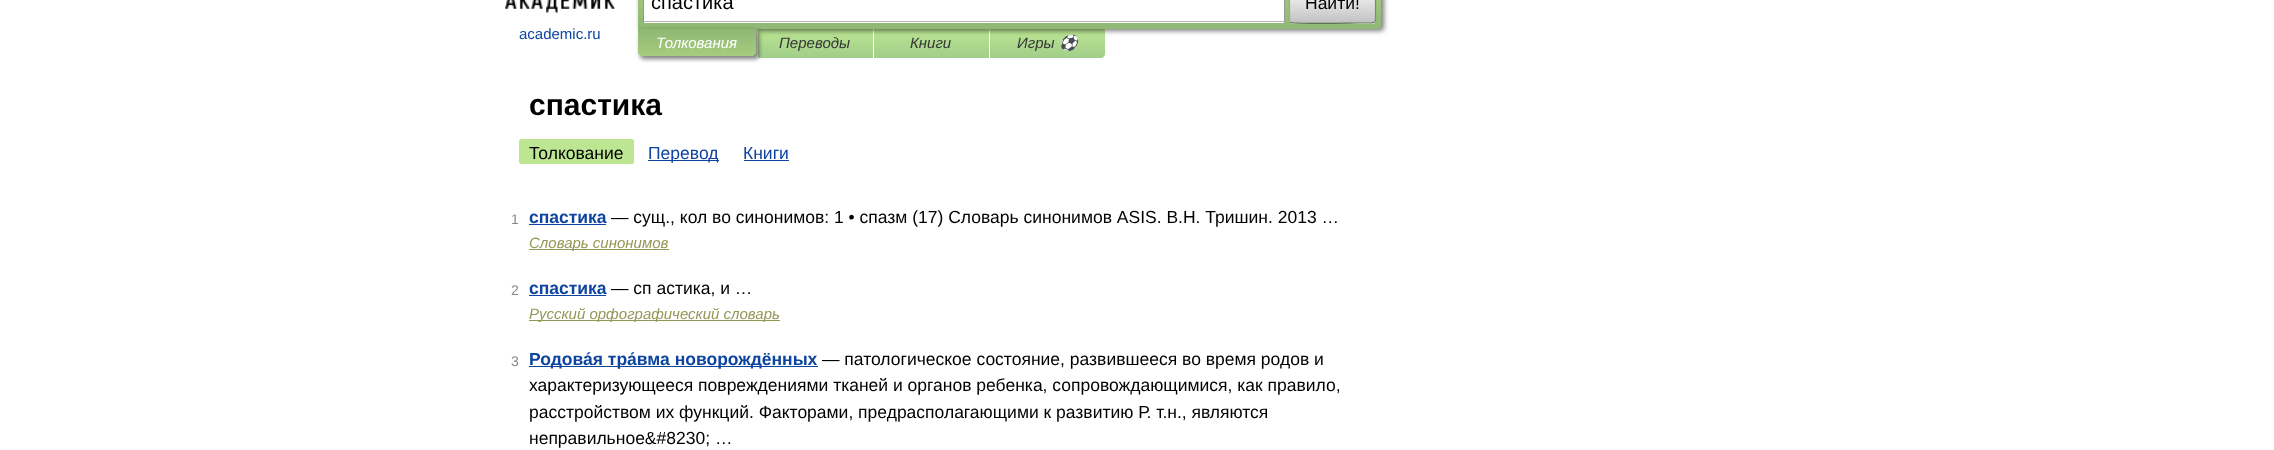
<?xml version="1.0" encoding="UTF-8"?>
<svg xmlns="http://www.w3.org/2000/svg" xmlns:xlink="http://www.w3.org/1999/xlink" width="2274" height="450">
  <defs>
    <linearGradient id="g1" gradientUnits="userSpaceOnUse" x1="815" y1="29" x2="815" y2="58"><stop offset="0" stop-color="#bde693" /><stop offset="1" stop-color="#a0ce8a" /></linearGradient>
    <linearGradient id="g2" gradientUnits="userSpaceOnUse" x1="931" y1="29" x2="931" y2="58"><stop offset="0" stop-color="#bde693" /><stop offset="1" stop-color="#a0ce8a" /></linearGradient>
    <linearGradient id="g3" gradientUnits="userSpaceOnUse" x1="1048" y1="29" x2="1048" y2="58"><stop offset="0" stop-color="#bde693" /><stop offset="1" stop-color="#a0ce8a" /></linearGradient>
    <linearGradient id="g4" gradientUnits="userSpaceOnUse" x1="1009" y1="-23" x2="1009" y2="29"><stop offset="0" stop-color="#abcf7e" /><stop offset="1" stop-color="#8eb874" /></linearGradient>
    <clipPath id="clip1"><rect x="1289" y="-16" width="87" height="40" rx="4" /></clipPath>
    <linearGradient id="g5" gradientUnits="userSpaceOnUse" x1="1333" y1="-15" x2="1333" y2="23"><stop offset="0" stop-color="#ffffff" /><stop offset="1" stop-color="#c1c1c1" /></linearGradient>
    <linearGradient id="g6" gradientUnits="userSpaceOnUse" x1="1333" y1="22" x2="1333" y2="60"><stop offset="0" stop-color="#ffffff" /><stop offset="1" stop-color="#c1c1c1" /></linearGradient>
    <linearGradient id="g7" gradientUnits="userSpaceOnUse" x1="697" y1="29" x2="697" y2="56"><stop offset="0" stop-color="#8fb875" /><stop offset="1" stop-color="#a7cc7d" /></linearGradient>
  </defs>
  <rect width="100%" height="100%" fill="#ffffff" />
  <rect x="758" y="29" width="115" height="29" fill="url(#g1)" />
  <rect x="874" y="29" width="115" height="29" fill="url(#g2)" />
  <path d="M 990 29 h 115 v 25 c 0 2 -2 4 -4 4 h -111 z" fill="url(#g3)" />
  <rect x="640" y="-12" width="744" height="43" rx="4" fill="#000000" fill-opacity="0.5" filter="blur(2.5px)" />
  <path d="M 638 -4 h 739 c 2 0 4 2 4 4 v 25 c 0 2 -2 4 -4 4 h -739 z" fill="url(#g4)" />
  <rect x="644" width="640" height="23" fill="#ffffff" />
  <rect x="1284" width="1" height="23" fill="#949494" />
  <rect x="643" y="21" width="642" height="1" fill="#b4b4b4" />
  <rect x="643" width="1" height="23" fill="#949494" />
  <g clip-path="url(#clip1)">
    <rect x="1289" width="87" height="23" fill="url(#g5)" />
    <rect x="1289" y="23" width="87" height="1" fill="url(#g6)" />
  </g>
  <path d="M 1374.5 -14.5 c 1 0.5 1 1 1 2 v 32.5 c 0 1 0 1.5 -1 2" fill="none" stroke="#7a8e69" stroke-width="1.2" />
  <path d="M 1374.5 22 l -2 1 h -13.5 c -7.5 0 -66.5 1 -68.5 -0.5 v -0.5" fill="none" stroke="#5d7250" stroke-width="1.2" />
  <path d="M 1290.5 22 c -1 -0.5 -1 -1 -1 -2 v -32.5 c 0 -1 0 -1.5 1 -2" fill="none" stroke="#9aae89" stroke-width="1.2" />
  <image x="505" y="0" width="110" height="13" xlink:href="image1.png" />
  <rect x="640" y="31" width="119" height="28" rx="4" fill="#000000" fill-opacity="0.5" filter="blur(2px)" />
  <path d="M 638 29 h 118 v 23 c 0 2 -2 4 -4 4 h -110 c -2 0 -4 -2 -4 -4 z" fill="url(#g7)" />
  <rect x="519" y="139" width="115" height="25" rx="2.5" fill="#bde693" />
  <rect x="648" y="160" width="71" height="1" fill="#0d44a0" />
  <rect x="744" y="160" width="45" height="1" fill="#0d44a0" />
  <rect x="529" y="224" width="77" height="1" fill="#0d44a0" />
  <rect x="529" y="249" width="140" height="1" fill="#939756" />
  <rect x="529" y="295" width="77" height="1" fill="#0d44a0" />
  <rect x="529" y="320" width="251" height="1" fill="#939756" />
  <rect x="529" y="366" width="289" height="1" fill="#0d44a0" />
  <text x="651" y="9" style="font-family: Liberation Sans; font-size: 20px; fill: #000000">спастика</text>
  <text x="1305" y="9" style="font-family: Liberation Sans; font-size: 17.5px; fill: #000000">Найти!</text>
  <text x="519" y="39" style="font-family: Liberation Sans; font-size: 15px; fill: #0d44a0">academic.ru</text>
  <text x="656" y="48" style="font-family: Liberation Sans; font-size: 15px; font-style: italic; fill: #ffffff">Толкования</text>
  <text x="779" y="48" style="font-family: Liberation Sans; font-size: 15px; font-style: italic; fill: #353535">Переводы</text>
  <text x="910" y="48" style="font-family: Liberation Sans; font-size: 15px; font-style: italic; fill: #353535">Книги</text>
  <text x="1017" y="48" style="font-family: Liberation Sans; font-size: 15px; font-style: italic; fill: #353535">Игры</text>
  <text x="1059" y="48" style="font-family: Noto Color Emoji; font-size: 15px; font-style: italic; fill: #353535">⚽</text>
  <text x="529" y="115" style="font-family: Liberation Sans; font-size: 30px; font-weight: bold; fill: #000000">спастика</text>
  <text x="529" y="159" style="font-family: Liberation Sans; font-size: 17.5px; fill: #000000">Толкование</text>
  <text x="648" y="159" style="font-family: Liberation Sans; font-size: 17.5px; fill: #0d44a0">Перевод</text>
  <text x="743" y="159" style="font-family: Liberation Sans; font-size: 17.5px; fill: #0d44a0">Книги</text>
  <text x="511" y="224" style="font-family: Liberation Sans; font-size: 14px; fill: #898989">1</text>
  <text x="529" y="223" style="font-family: Liberation Sans; font-size: 17.5px; font-weight: bold; fill: #0d44a0">спастика</text>
  <text x="611" y="223" style="font-family: Liberation Sans; font-size: 17.5px; fill: #000000">— сущ., кол во синонимов: 1 • спазм (17) Словарь синонимов ASIS. В.Н. Тришин. 2013 …</text>
  <text x="529" y="248" style="font-family: Liberation Sans; font-size: 15px; font-style: italic; fill: #939756">Словарь синонимов</text>
  <text x="511" y="295" style="font-family: Liberation Sans; font-size: 14px; fill: #898989">2</text>
  <text x="529" y="294" style="font-family: Liberation Sans; font-size: 17.5px; font-weight: bold; fill: #0d44a0">спастика</text>
  <text x="611" y="294" style="font-family: Liberation Sans; font-size: 17.5px; fill: #000000">— сп астика, и …</text>
  <text x="529" y="319" style="font-family: Liberation Sans; font-size: 15px; font-style: italic; fill: #939756">Русский орфографический словарь</text>
  <text x="511" y="366" style="font-family: Liberation Sans; font-size: 14px; fill: #898989">3</text>
  <text x="529" y="365" style="font-family: Liberation Sans; font-size: 17.5px; font-weight: bold; fill: #0d44a0">Родова́я тра́вма новорождённых</text>
  <text x="822" y="365" style="font-family: Liberation Sans; font-size: 17.5px; fill: #000000">— патологическое состояние, развившееся во время родов и</text>
  <text x="529" y="391" style="font-family: Liberation Sans; font-size: 17.5px; fill: #000000">характеризующееся повреждениями тканей и органов ребенка, сопровождающимися, как правило,</text>
  <text x="529" y="418" style="font-family: Liberation Sans; font-size: 17.5px; fill: #000000">расстройством их функций. Факторами, предрасполагающими к развитию Р. т.н., являются</text>
  <text x="529" y="444" style="font-family: Liberation Sans; font-size: 17.5px; fill: #000000">неправильное&amp;#8230; …</text>
</svg>
